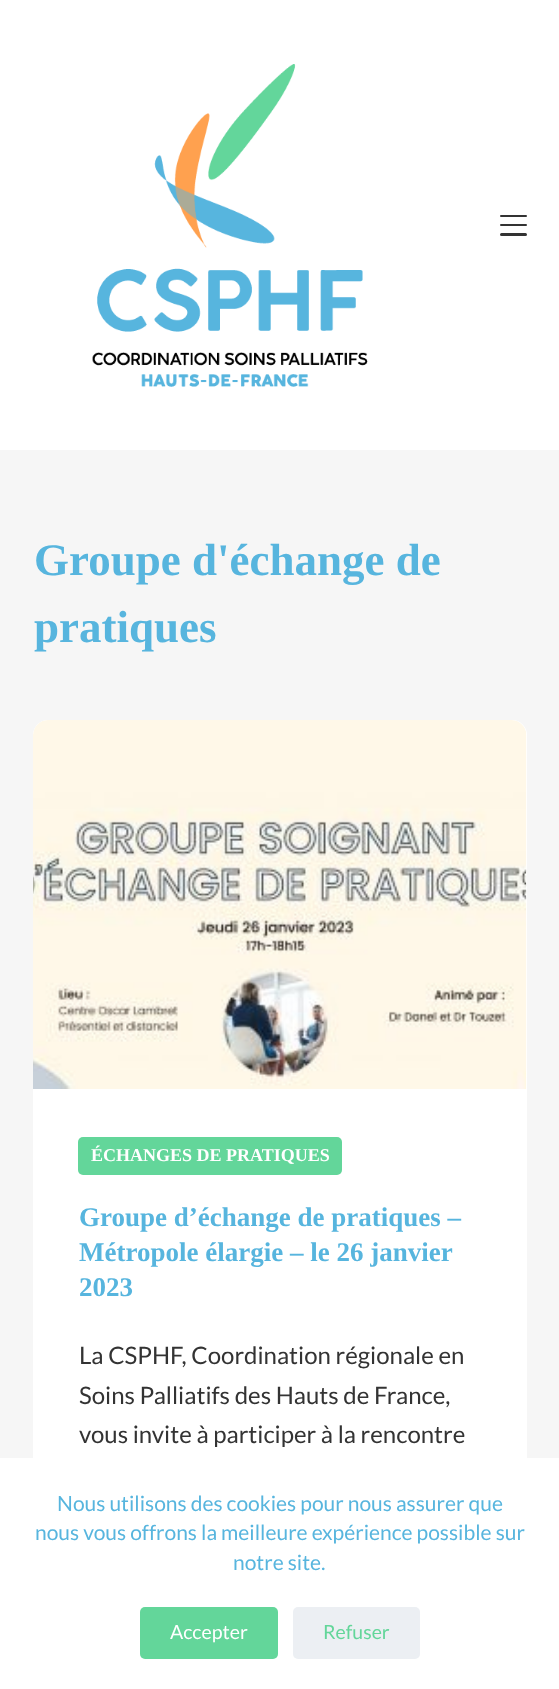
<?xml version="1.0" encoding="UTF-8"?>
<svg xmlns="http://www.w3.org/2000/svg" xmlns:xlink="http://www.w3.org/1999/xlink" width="559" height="1689">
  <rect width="100%" height="100%" fill="#f6f6f6" />
  <rect width="559" height="450" fill="#ffffff" />
  <image x="92" y="64" width="276" height="323" xlink:href="image1.png" />
  <rect x="500" y="215" width="27" height="2" rx="1" fill="#333333" />
  <rect x="500" y="224" width="27" height="2" rx="1" fill="#333333" />
  <rect x="500" y="233" width="27" height="3" rx="1.5" fill="#333333" />
  <rect x="33" y="720" width="494" height="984" rx="15" fill="#ffffff" />
  <image x="33" y="720" width="494" height="369" xlink:href="image2.png" />
  <rect x="78" y="1137" width="264" height="38" rx="5" fill="#63d69a" />
  <rect y="1458" width="559" height="231" fill="#ffffff" />
  <rect x="140" y="1607" width="138" height="52" rx="5" fill="#63d69a" />
  <rect x="293" y="1607" width="127" height="52" rx="5" fill="#eceff3" />
  <text x="34" y="575" style="font-family: Liberation Serif; font-size: 45px; font-weight: bold; fill: #57b5de">Groupe d'échange de</text>
  <text x="34" y="642" style="font-family: Liberation Serif; font-size: 45px; font-weight: bold; fill: #57b5de">pratiques</text>
  <text x="91" y="1161" style="font-family: Liberation Serif; font-size: 18px; font-weight: bold; fill: #ffffff">ÉCHANGES DE PRATIQUES</text>
  <text x="79" y="1226" style="font-family: Liberation Serif; font-size: 27px; font-weight: bold; fill: #57b5de">Groupe d’échange de pratiques –</text>
  <text x="79" y="1261" style="font-family: Liberation Serif; font-size: 27px; font-weight: bold; fill: #57b5de">Métropole élargie – le 26 janvier</text>
  <text x="79" y="1296" style="font-family: Liberation Serif; font-size: 27px; font-weight: bold; fill: #57b5de">2023</text>
  <text x="79" y="1364" style="font-family: Lato; font-size: 24px; fill: #333333">La CSPHF, Coordination régionale en</text>
  <text x="79" y="1404" style="font-family: Lato; font-size: 24px; fill: #333333">Soins Palliatifs des Hauts de France,</text>
  <text x="79" y="1443" style="font-family: Lato; font-size: 24px; fill: #333333">vous invite à participer à la rencontre</text>
  <text x="57" y="1511" style="font-family: Lato; font-size: 21px; fill: #57b5de">Nous utilisons des cookies pour nous assurer que</text>
  <text x="35" y="1540" style="font-family: Lato; font-size: 21px; fill: #57b5de">nous vous offrons la meilleure expérience possible sur</text>
  <text x="233" y="1570" style="font-family: Lato; font-size: 21px; fill: #57b5de">notre site.</text>
  <text x="170" y="1639" style="font-family: Lato; font-size: 19.5px; fill: #ffffff">Accepter</text>
  <text x="323" y="1639" style="font-family: Lato; font-size: 19.5px; fill: #63d69a">Refuser</text>
</svg>
